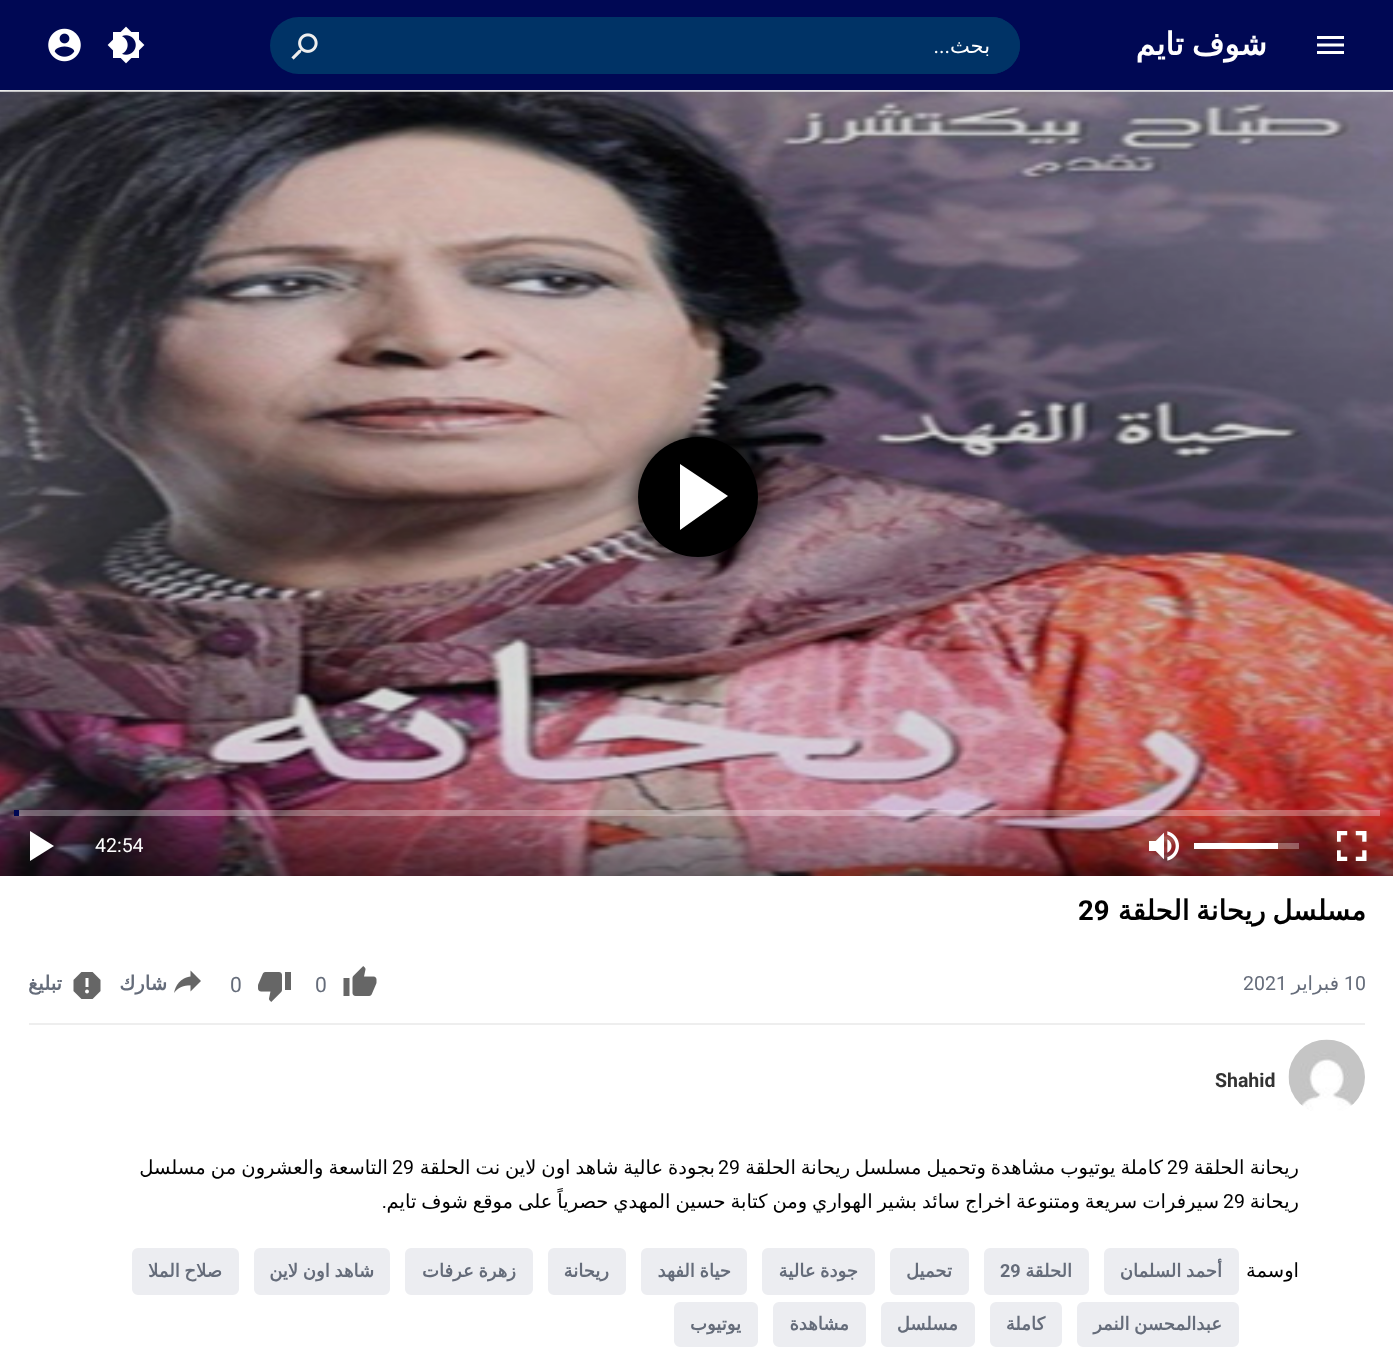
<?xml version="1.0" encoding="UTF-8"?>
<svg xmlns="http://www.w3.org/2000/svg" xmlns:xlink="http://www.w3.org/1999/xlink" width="1393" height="1351">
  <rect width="100%" height="100%" fill="#ffffff" />
  <rect y="90" width="1393" height="2" fill="#eeeeee" />
  <image x="0" y="91" width="1393" height="785" xlink:href="image5.png" />
  <rect x="8" y="11" width="1378" height="75" fill="#999999" filter="blur(4px)" />
  <rect width="1393" height="90" fill="#000854" />
  <image x="1317" y="36" width="27" height="18" xlink:href="image1.png" />
  <rect x="270" y="17" width="750" height="57" rx="28.5" fill="#003366" />
  <path d="M 345 17 h 646.5 c 15.5 0 28.5 13 28.5 28.5 c 0 15.5 -13 28.5 -28.5 28.5 h -646.5 z" fill="#003366" />
  <image x="291" y="33" width="27" height="27" xlink:href="image2.png" />
  <image x="107" y="26" width="38" height="38" xlink:href="image3.png" />
  <image x="48" y="28" width="33" height="34" xlink:href="image4.png" />
  <rect x="638" y="437" width="120" height="120" rx="60" fill="#000000" filter="blur(15px)" />
  <circle cx="698" cy="497" r="60" fill="#000000" />
  <path d="M 680 530 v -66 l 48 32 z" fill="#ffffff" />
  <rect x="14" y="810" width="1366" height="6" fill="#ffffff" fill-opacity="0.3" />
  <rect x="14" y="810" width="5" height="6" fill="#000854" />
  <image x="1337" y="831" width="30" height="30" xlink:href="image6.png" />
  <rect x="1278" y="843" width="21" height="6" fill="#ffffff" fill-opacity="0.3" />
  <rect x="1194" y="843" width="84" height="6" fill="#ffffff" />
  <image x="1149" y="831" width="30" height="30" xlink:href="image7.png" />
  <path d="M 30 831 v 30 l 24 -15 z" fill="#ffffff" />
  <rect x="29" y="1023" width="1336" height="2" fill="#eeeeee" />
  <image x="343" y="966" width="34" height="30" xlink:href="image8.png" />
  <image x="258" y="972" width="33" height="30" xlink:href="image9.png" />
  <image x="174" y="970" width="27" height="23" xlink:href="image10.png" />
  <image x="73" y="972" width="28" height="27" xlink:href="image11.png" />
  <image x="1288" y="1039" width="77" height="72" xlink:href="image12.png" />
  <rect x="1105" y="1249" width="133" height="45" rx="5" fill="#ecedf1" stroke="#ecedf1" stroke-width="2" />
  <rect x="985" y="1249" width="103" height="45" rx="5" fill="#ecedf1" stroke="#ecedf1" stroke-width="2" />
  <rect x="891" y="1249" width="77" height="45" rx="5" fill="#ecedf1" stroke="#ecedf1" stroke-width="2" />
  <rect x="763" y="1249" width="111" height="45" rx="5" fill="#ecedf1" stroke="#ecedf1" stroke-width="2" />
  <rect x="642" y="1249" width="104" height="45" rx="5" fill="#ecedf1" stroke="#ecedf1" stroke-width="2" />
  <rect x="549" y="1249" width="76" height="45" rx="5" fill="#ecedf1" stroke="#ecedf1" stroke-width="2" />
  <rect x="406" y="1249" width="126" height="45" rx="5" fill="#ecedf1" stroke="#ecedf1" stroke-width="2" />
  <rect x="255" y="1249" width="134" height="45" rx="5" fill="#ecedf1" stroke="#ecedf1" stroke-width="2" />
  <rect x="133" y="1249" width="105" height="45" rx="5" fill="#ecedf1" stroke="#ecedf1" stroke-width="2" />
  <rect x="1078" y="1303" width="160" height="43" rx="5" fill="#ecedf1" stroke="#ecedf1" stroke-width="2" />
  <rect x="991" y="1303" width="70" height="43" rx="5" fill="#ecedf1" stroke="#ecedf1" stroke-width="2" />
  <rect x="882" y="1303" width="92" height="43" rx="5" fill="#ecedf1" stroke="#ecedf1" stroke-width="2" />
  <rect x="774" y="1303" width="91" height="43" rx="5" fill="#ecedf1" stroke="#ecedf1" stroke-width="2" />
  <rect x="675" y="1303" width="82" height="43" rx="5" fill="#ecedf1" stroke="#ecedf1" stroke-width="2" />
  <text x="1267" y="55" word-spacing="-2" style="font-family: DejaVu Sans; font-size: 31.5px; font-weight: bold; direction: rtl; fill: #ffffff">شوف تايم</text>
  <text x="990" y="53" style="font-family: DejaVu Sans; font-size: 21px; direction: rtl; fill: #ffffff">بحث</text>
  <text x="950" y="53" style="font-family: Roboto; font-size: 21px; direction: rtl; fill: #ffffff">...</text>
  <text x="95" y="852" style="font-family: Roboto; font-size: 19.5px; fill: #ffffff">42:54</text>
  <text x="1366" y="920" word-spacing="-2" style="font-family: DejaVu Sans; font-size: 27.5px; font-weight: bold; direction: rtl; fill: #000000">مسلسل ريحانة الحلقة</text>
  <text x="1078" y="920" style="font-family: Roboto; font-size: 27.5px; font-weight: bold; fill: #000000">29</text>
  <text x="1344" y="990" style="font-family: Roboto; font-size: 19.5px; fill: #656c7a">10</text>
  <text x="1339" y="990" style="font-family: DejaVu Sans; font-size: 19.5px; direction: rtl; fill: #656c7a">فبراير</text>
  <text x="1243" y="990" style="font-family: Roboto; font-size: 19.5px; fill: #656c7a">2021</text>
  <text x="315" y="992" style="font-family: Roboto; font-size: 21px; fill: #656c7a">0</text>
  <text x="230" y="992" style="font-family: Roboto; font-size: 21px; fill: #656c7a">0</text>
  <text x="167" y="990" style="font-family: DejaVu Sans; font-size: 19.5px; font-weight: bold; direction: rtl; fill: #656c7a">شارك</text>
  <text x="62" y="990" style="font-family: DejaVu Sans; font-size: 19.5px; font-weight: bold; direction: rtl; fill: #656c7a">تبليغ</text>
  <text x="1215" y="1087" style="font-family: Roboto; font-size: 19.5px; font-weight: bold; fill: #333333">Shahid</text>
  <text x="1299" y="1174" word-spacing="-1" style="font-family: DejaVu Sans; font-size: 19.5px; direction: rtl; fill: #000000">ريحانة الحلقة</text>
  <text x="1167" y="1174" style="font-family: Roboto; font-size: 19.5px; fill: #000000">29</text>
  <text x="1163" y="1174" word-spacing="-1.25" style="font-family: DejaVu Sans; font-size: 19.5px; direction: rtl; fill: #000000">كاملة يوتيوب مشاهدة وتحميل مسلسل ريحانة الحلقة</text>
  <text x="718" y="1174" style="font-family: Roboto; font-size: 19.5px; fill: #000000">29</text>
  <text x="715" y="1174" word-spacing="-1.25" style="font-family: DejaVu Sans; font-size: 19.5px; direction: rtl; fill: #000000">بجودة عالية شاهد اون لاين نت الحلقة</text>
  <text x="392" y="1174" style="font-family: Roboto; font-size: 19.5px; fill: #000000">29</text>
  <text x="388" y="1174" word-spacing="-1" style="font-family: DejaVu Sans; font-size: 19.5px; direction: rtl; fill: #000000">التاسعة والعشرون من مسلسل</text>
  <text x="1299" y="1208" style="font-family: DejaVu Sans; font-size: 19.5px; direction: rtl; fill: #000000">ريحانة</text>
  <text x="1223" y="1208" style="font-family: Roboto; font-size: 19.5px; fill: #000000">29</text>
  <text x="1219" y="1208" word-spacing="-1.25" style="font-family: DejaVu Sans; font-size: 19.5px; direction: rtl; fill: #000000">سيرفرات سريعة ومتنوعة اخراج سائد بشير الهواري ومن كتابة حسين المهدي حصرياً على موقع شوف تايم</text>
  <text x="387" y="1208" style="font-family: Roboto; font-size: 19.5px; direction: rtl; fill: #000000">.</text>
  <text x="1299" y="1277" style="font-family: DejaVu Sans; font-size: 19.5px; direction: rtl; fill: #000000">اوسمة</text>
  <text x="1222" y="1277" word-spacing="-1" style="font-family: DejaVu Sans; font-size: 18px; font-weight: bold; direction: rtl; fill: #656c7a">أحمد السلمان</text>
  <text x="1072" y="1277" style="font-family: DejaVu Sans; font-size: 18px; font-weight: bold; direction: rtl; fill: #656c7a">الحلقة</text>
  <text x="1000" y="1277" style="font-family: Roboto; font-size: 18px; font-weight: bold; fill: #656c7a">29</text>
  <text x="952" y="1277" style="font-family: DejaVu Sans; font-size: 18px; font-weight: bold; direction: rtl; fill: #656c7a">تحميل</text>
  <text x="858" y="1277" word-spacing="-1" style="font-family: DejaVu Sans; font-size: 18px; font-weight: bold; direction: rtl; fill: #656c7a">جودة عالية</text>
  <text x="731" y="1277" word-spacing="-1" style="font-family: DejaVu Sans; font-size: 18px; font-weight: bold; direction: rtl; fill: #656c7a">حياة الفهد</text>
  <text x="609" y="1277" style="font-family: DejaVu Sans; font-size: 18px; font-weight: bold; direction: rtl; fill: #656c7a">ريحانة</text>
  <text x="516" y="1277" word-spacing="-1" style="font-family: DejaVu Sans; font-size: 18px; font-weight: bold; direction: rtl; fill: #656c7a">زهرة عرفات</text>
  <text x="374" y="1277" word-spacing="-1" style="font-family: DejaVu Sans; font-size: 18px; font-weight: bold; direction: rtl; fill: #656c7a">شاهد اون لاين</text>
  <text x="222" y="1277" word-spacing="-1" style="font-family: DejaVu Sans; font-size: 18px; font-weight: bold; direction: rtl; fill: #656c7a">صلاح الملا</text>
  <text x="1222" y="1330" word-spacing="-1" style="font-family: DejaVu Sans; font-size: 18px; font-weight: bold; direction: rtl; fill: #656c7a">عبدالمحسن النمر</text>
  <text x="1045" y="1330" style="font-family: DejaVu Sans; font-size: 18px; font-weight: bold; direction: rtl; fill: #656c7a">كاملة</text>
  <text x="958" y="1330" style="font-family: DejaVu Sans; font-size: 18px; font-weight: bold; direction: rtl; fill: #656c7a">مسلسل</text>
  <text x="849" y="1330" style="font-family: DejaVu Sans; font-size: 18px; font-weight: bold; direction: rtl; fill: #656c7a">مشاهدة</text>
  <text x="741" y="1330" style="font-family: DejaVu Sans; font-size: 18px; font-weight: bold; direction: rtl; fill: #656c7a">يوتيوب</text>
</svg>
